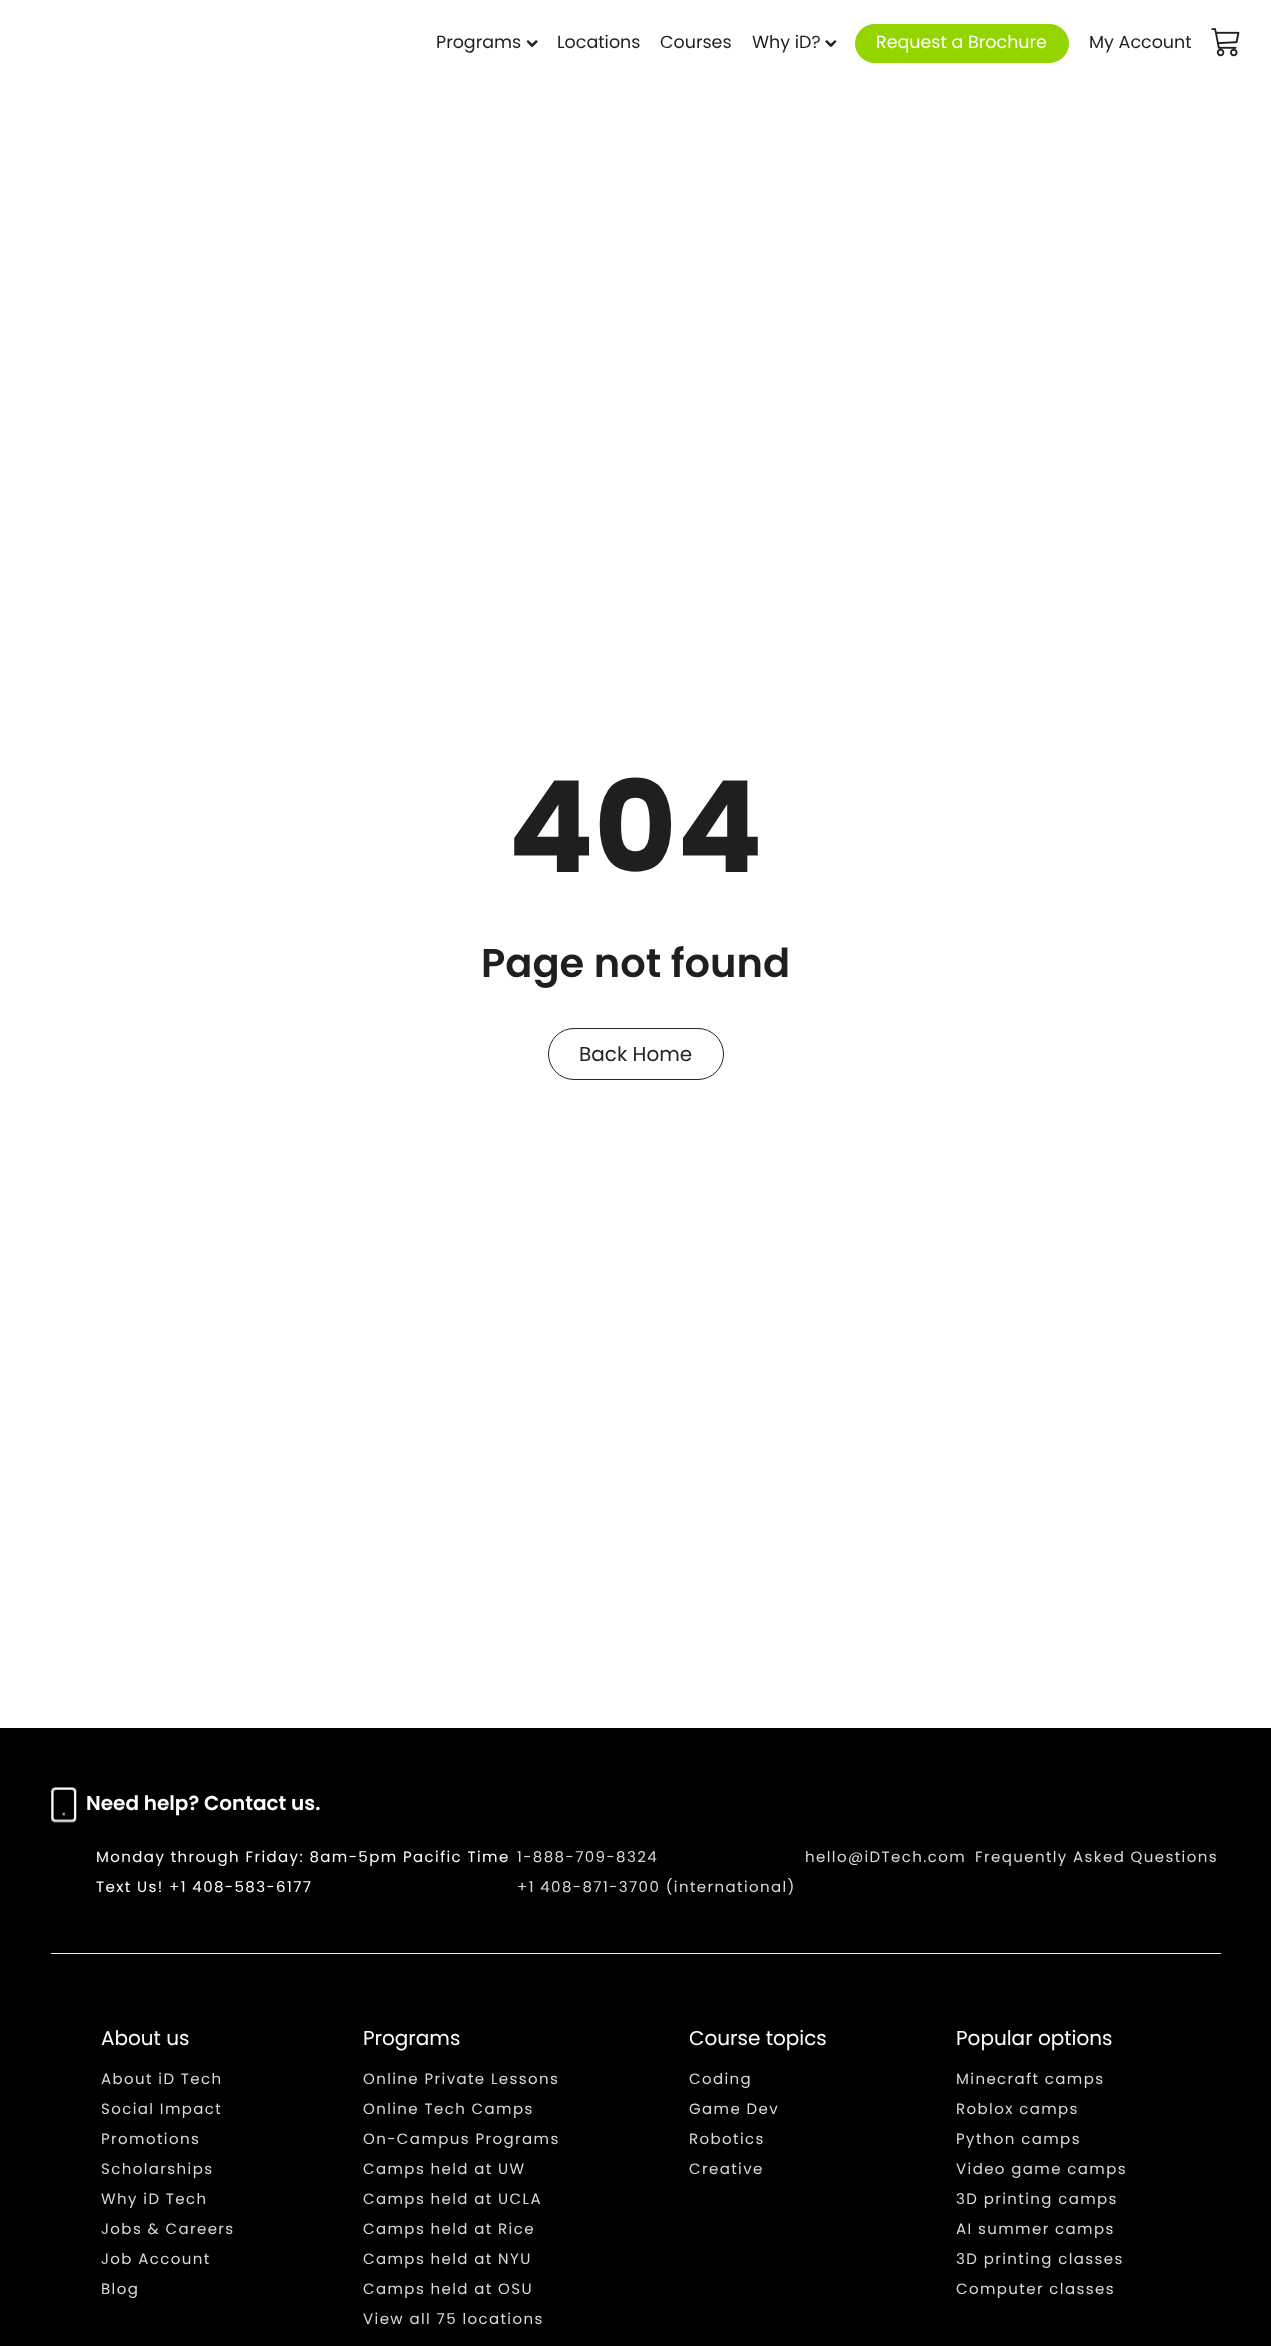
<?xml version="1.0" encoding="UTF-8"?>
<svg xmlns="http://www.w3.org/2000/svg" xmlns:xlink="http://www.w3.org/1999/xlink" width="1271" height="2346">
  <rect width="100%" height="100%" fill="#ffffff" />
  <path d="M 536 40 l 2 1.5 l -5.5 5.5 l -1.5 -2 z" fill="#1f1f1f" />
  <path d="M 528 40 l 5.5 5 l -2 2 l -5 -5.5 z" fill="#1f1f1f" />
  <path d="M 835 40 l 1.5 1.5 l -5 5.5 l -2 -2 z" fill="#1f1f1f" />
  <path d="M 827 40 l 5 5 l -1.5 2 l -5.5 -5.5 z" fill="#1f1f1f" />
  <rect x="855.5" y="24.5" width="213" height="38" rx="19" fill="#94d500" stroke="#94d500" />
  <image x="1211" y="28" width="29" height="29" xlink:href="image1.png" />
  <rect x="548.5" y="1028.5" width="175" height="51" rx="25.5" fill="none" stroke="#212529" />
  <rect y="1728" width="1271" height="618" fill="#000000" />
  <image x="51" y="1787" width="26" height="36" xlink:href="image2.png" />
  <rect x="51" y="1953" width="1170" height="1" fill="#efefef" />
  <text x="436" y="48" style="font-family: Poppins; font-size: 17.5px; fill: #1f1f1f">Programs</text>
  <text x="557" y="48" style="font-family: Poppins; font-size: 17.5px; fill: #1f1f1f">Locations</text>
  <text x="660" y="48" style="font-family: Poppins; font-size: 17.5px; fill: #1f1f1f">Courses</text>
  <text x="752" y="48" style="font-family: Poppins; font-size: 17.5px; fill: #1f1f1f">Why iD?</text>
  <text x="876" y="48" style="font-family: Poppins; font-size: 17.5px; fill: #ffffff">Request a Brochure</text>
  <text x="1089" y="48" style="font-family: Poppins; font-size: 17.5px; fill: #1f1f1f">My Account</text>
  <text x="508" y="872" style="font-family: Poppins; font-size: 127px; font-weight: bold; fill: #1f1f1f">404</text>
  <text x="481" y="977" style="font-family: Poppins; font-size: 40px; font-weight: 600; fill: #1f1f1f">Page not found</text>
  <text x="579" y="1061" style="font-family: Poppins; font-size: 20px; fill: #212529">Back Home</text>
  <text x="86" y="1810" style="font-family: Poppins; font-size: 20px; font-weight: 600; fill: #ffffff">Need help? Contact us.</text>
  <text x="96" y="1862" style="font-family: Poppins; font-size: 15px; letter-spacing: 1.4px; fill: #ffffff">Monday through Friday: 8am-5pm Pacific Time</text>
  <text x="96" y="1892" style="font-family: Poppins; font-size: 15px; letter-spacing: 1.4px; fill: #ffffff">Text Us! +1 408-583-6177</text>
  <text x="517" y="1862" style="font-family: Poppins; font-size: 15px; letter-spacing: 1.4px; fill: #d9d9d9">1-888-709-8324</text>
  <text x="517" y="1892" style="font-family: Poppins; font-size: 15px; letter-spacing: 1.4px; fill: #d9d9d9">+1 408-871-3700 (international)</text>
  <text x="805" y="1862" style="font-family: Poppins; font-size: 15px; letter-spacing: 1.4px; fill: #d9d9d9">hello@iDTech.com</text>
  <text x="975" y="1862" style="font-family: Poppins; font-size: 15px; letter-spacing: 1.4px; fill: #d9d9d9">Frequently Asked Questions</text>
  <text x="101" y="2045" style="font-family: Poppins; font-size: 20px; fill: #ffffff">About us</text>
  <text x="101" y="2084" style="font-family: Poppins; font-size: 15px; letter-spacing: 1.4px; fill: #d9d9d9">About iD Tech</text>
  <text x="101" y="2114" style="font-family: Poppins; font-size: 15px; letter-spacing: 1.4px; fill: #d9d9d9">Social Impact</text>
  <text x="101" y="2144" style="font-family: Poppins; font-size: 15px; letter-spacing: 1.4px; fill: #d9d9d9">Promotions</text>
  <text x="101" y="2174" style="font-family: Poppins; font-size: 15px; letter-spacing: 1.4px; fill: #d9d9d9">Scholarships</text>
  <text x="101" y="2204" style="font-family: Poppins; font-size: 15px; letter-spacing: 1.4px; fill: #d9d9d9">Why iD Tech</text>
  <text x="101" y="2234" style="font-family: Poppins; font-size: 15px; letter-spacing: 1.4px; fill: #d9d9d9">Jobs &amp; Careers</text>
  <text x="101" y="2264" style="font-family: Poppins; font-size: 15px; letter-spacing: 1.4px; fill: #d9d9d9">Job Account</text>
  <text x="101" y="2294" style="font-family: Poppins; font-size: 15px; letter-spacing: 1.4px; fill: #d9d9d9">Blog</text>
  <text x="363" y="2045" style="font-family: Poppins; font-size: 20px; fill: #ffffff">Programs</text>
  <text x="363" y="2084" style="font-family: Poppins; font-size: 15px; letter-spacing: 1.4px; fill: #d9d9d9">Online Private Lessons</text>
  <text x="363" y="2114" style="font-family: Poppins; font-size: 15px; letter-spacing: 1.4px; fill: #d9d9d9">Online Tech Camps</text>
  <text x="363" y="2144" style="font-family: Poppins; font-size: 15px; letter-spacing: 1.4px; fill: #d9d9d9">On-Campus Programs</text>
  <text x="363" y="2174" style="font-family: Poppins; font-size: 15px; letter-spacing: 1.4px; fill: #d9d9d9">Camps held at UW</text>
  <text x="363" y="2204" style="font-family: Poppins; font-size: 15px; letter-spacing: 1.4px; fill: #d9d9d9">Camps held at UCLA</text>
  <text x="363" y="2234" style="font-family: Poppins; font-size: 15px; letter-spacing: 1.4px; fill: #d9d9d9">Camps held at Rice</text>
  <text x="363" y="2264" style="font-family: Poppins; font-size: 15px; letter-spacing: 1.4px; fill: #d9d9d9">Camps held at NYU</text>
  <text x="363" y="2294" style="font-family: Poppins; font-size: 15px; letter-spacing: 1.4px; fill: #d9d9d9">Camps held at OSU</text>
  <text x="363" y="2324" style="font-family: Poppins; font-size: 15px; letter-spacing: 1.4px; fill: #d9d9d9">View all 75 locations</text>
  <text x="689" y="2045" style="font-family: Poppins; font-size: 20px; fill: #ffffff">Course topics</text>
  <text x="689" y="2084" style="font-family: Poppins; font-size: 15px; letter-spacing: 1.4px; fill: #d9d9d9">Coding</text>
  <text x="689" y="2114" style="font-family: Poppins; font-size: 15px; letter-spacing: 1.4px; fill: #d9d9d9">Game Dev</text>
  <text x="689" y="2144" style="font-family: Poppins; font-size: 15px; letter-spacing: 1.4px; fill: #d9d9d9">Robotics</text>
  <text x="689" y="2174" style="font-family: Poppins; font-size: 15px; letter-spacing: 1.4px; fill: #d9d9d9">Creative</text>
  <text x="956" y="2045" style="font-family: Poppins; font-size: 20px; fill: #ffffff">Popular options</text>
  <text x="956" y="2084" style="font-family: Poppins; font-size: 15px; letter-spacing: 1.4px; fill: #d9d9d9">Minecraft camps</text>
  <text x="956" y="2114" style="font-family: Poppins; font-size: 15px; letter-spacing: 1.4px; fill: #d9d9d9">Roblox camps</text>
  <text x="956" y="2144" style="font-family: Poppins; font-size: 15px; letter-spacing: 1.4px; fill: #d9d9d9">Python camps</text>
  <text x="956" y="2174" style="font-family: Poppins; font-size: 15px; letter-spacing: 1.4px; fill: #d9d9d9">Video game camps</text>
  <text x="956" y="2204" style="font-family: Poppins; font-size: 15px; letter-spacing: 1.4px; fill: #d9d9d9">3D printing camps</text>
  <text x="956" y="2234" style="font-family: Poppins; font-size: 15px; letter-spacing: 1.4px; fill: #d9d9d9">AI summer camps</text>
  <text x="956" y="2264" style="font-family: Poppins; font-size: 15px; letter-spacing: 1.4px; fill: #d9d9d9">3D printing classes</text>
  <text x="956" y="2294" style="font-family: Poppins; font-size: 15px; letter-spacing: 1.4px; fill: #d9d9d9">Computer classes</text>
</svg>
